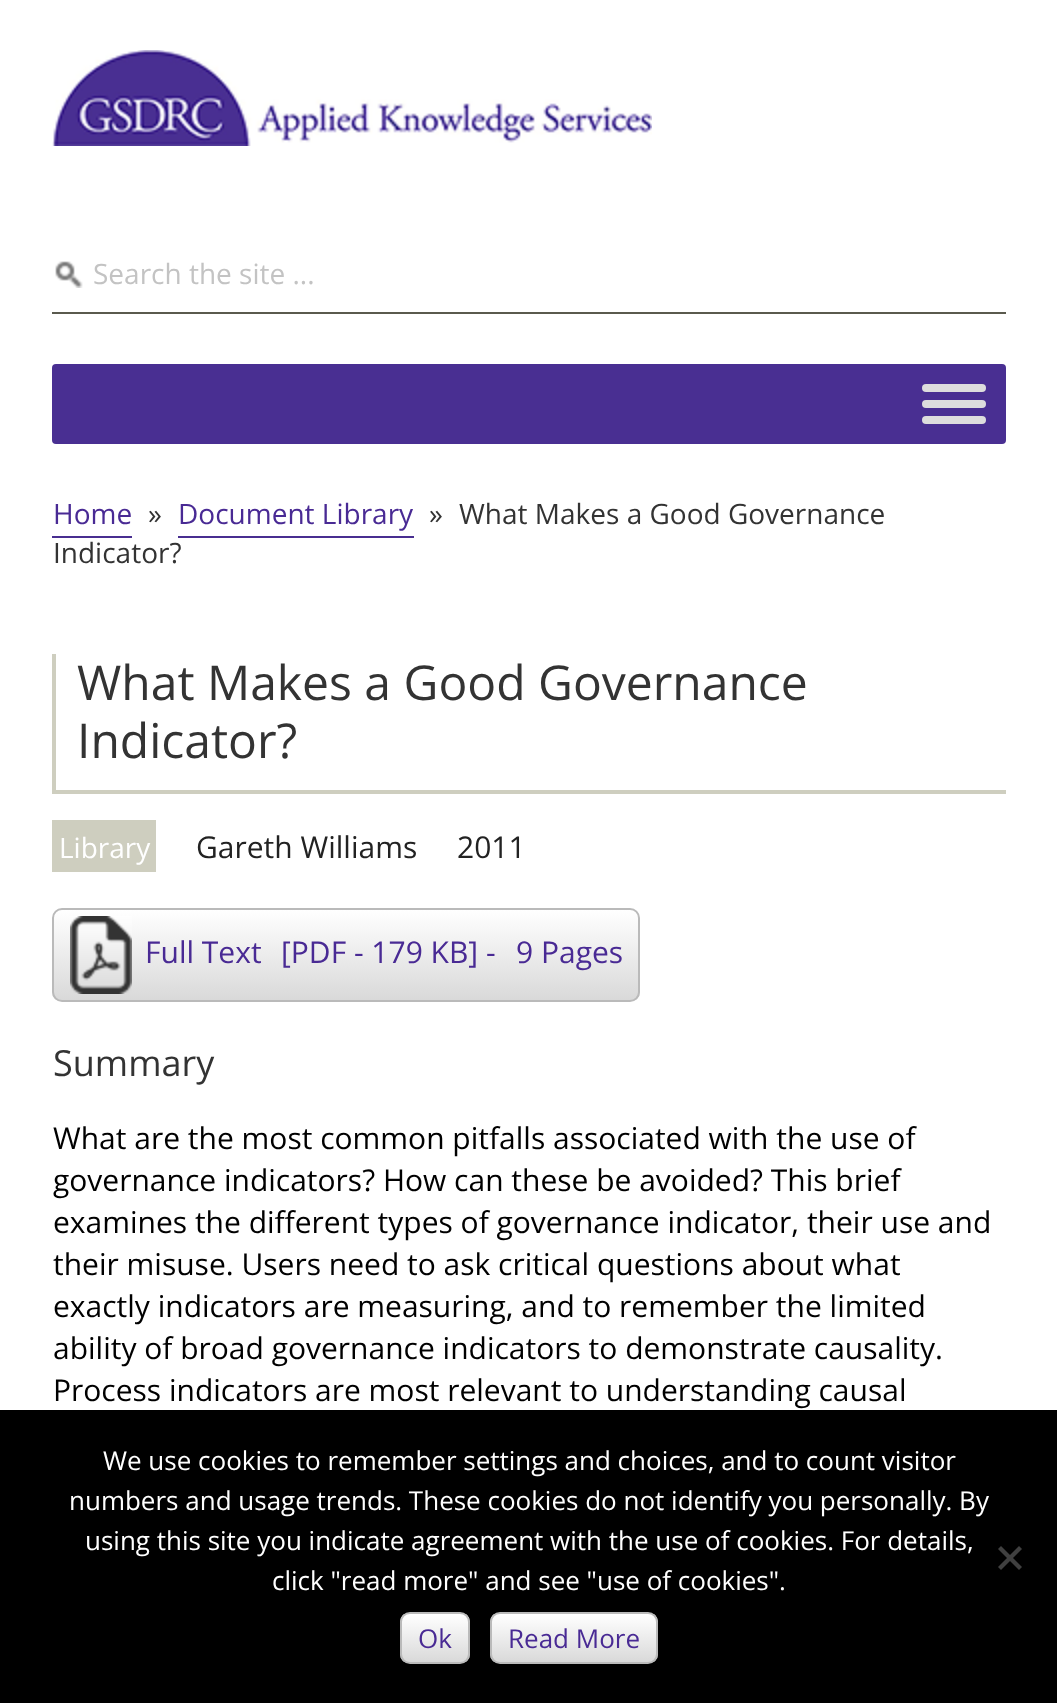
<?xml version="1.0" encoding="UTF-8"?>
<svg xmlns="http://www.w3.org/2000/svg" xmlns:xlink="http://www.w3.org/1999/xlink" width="1057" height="1703">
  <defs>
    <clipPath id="clip1"><rect x="52" y="908" width="588" height="94" rx="10" /></clipPath>
    <linearGradient id="g1" gradientUnits="userSpaceOnUse" x1="346" y1="910" x2="346" y2="1000"><stop offset="0" stop-color="#ffffff" /><stop offset="1" stop-color="#d9d9d9" /></linearGradient>
    <clipPath id="clip2"><rect x="400" y="1612" width="70" height="52" rx="10" /></clipPath>
    <linearGradient id="g2" gradientUnits="userSpaceOnUse" x1="435" y1="1614" x2="435" y2="1662"><stop offset="0" stop-color="#ffffff" /><stop offset="1" stop-color="#d9d9d9" /></linearGradient>
    <clipPath id="clip3"><rect x="490" y="1612" width="168" height="52" rx="10" /></clipPath>
    <linearGradient id="g3" gradientUnits="userSpaceOnUse" x1="574" y1="1614" x2="574" y2="1662"><stop offset="0" stop-color="#ffffff" /><stop offset="1" stop-color="#d9d9d9" /></linearGradient>
  </defs>
  <rect width="100%" height="100%" fill="#ffffff" />
  <image x="52" y="50" width="600" height="96" xlink:href="image1.png" />
  <image x="55" y="261" width="28" height="27" xlink:href="image2.png" />
  <rect x="52" y="312" width="954" height="2" fill="#5a5a4e" />
  <rect x="52" y="364" width="954" height="80" rx="4" fill="#492f92" />
  <rect x="922" y="384" width="64" height="8" rx="4" fill="#dddddd" />
  <rect x="922" y="400" width="64" height="8" rx="4" fill="#dddddd" />
  <rect x="922" y="416" width="64" height="8" rx="4" fill="#dddddd" />
  <rect x="52" y="536" width="80" height="2" fill="#482e90" />
  <rect x="178" y="536" width="236" height="2" fill="#482e90" />
  <rect x="52" y="790" width="954" height="4" fill="#cecebf" />
  <rect x="52" y="654" width="4" height="140" fill="#cecebf" />
  <rect x="52" y="820" width="104" height="52" fill="#cecebf" />
  <g clip-path="url(#clip1)">
    <rect x="52" y="910" width="588" height="90" fill="url(#g1)" />
  </g>
  <rect x="53" y="909" width="586" height="92" rx="9" fill="none" stroke="#bababa" stroke-width="2" />
  <image x="70" y="916" width="62" height="78" xlink:href="image3.png" />
  <rect y="1410" width="1057" height="293" fill="#000000" />
  <path d="M 1019 1546 l 3 3 l -21 21 l -3 -3 z" fill="#404040" />
  <path d="M 998 1549 l 3 -3 l 21 21 l -3 3 z" fill="#404040" />
  <g clip-path="url(#clip2)">
    <rect x="400" y="1614" width="70" height="48" fill="url(#g2)" />
  </g>
  <rect x="401" y="1613" width="68" height="50" rx="9" fill="none" stroke="#bababa" stroke-width="2" />
  <g clip-path="url(#clip3)">
    <rect x="490" y="1614" width="168" height="48" fill="url(#g3)" />
  </g>
  <rect x="491" y="1613" width="166" height="50" rx="9" fill="none" stroke="#bababa" stroke-width="2" />
  <text x="93" y="284" style="font-family: Open Sans; font-size: 28px; fill: #c3c3c3">Search the site ...</text>
  <text x="53" y="524" style="font-family: Open Sans; font-size: 28px; fill: #492a94">Home</text>
  <text x="148" y="524" style="font-family: Open Sans; font-size: 28px; fill: #333333">»</text>
  <text x="178" y="524" style="font-family: Open Sans; font-size: 28px; fill: #492a94">Document Library</text>
  <text x="429" y="524" style="font-family: Open Sans; font-size: 28px; fill: #333333">»</text>
  <text x="459" y="524" style="font-family: Open Sans; font-size: 28px; fill: #333333">What Makes a Good Governance</text>
  <text x="53" y="563" style="font-family: Open Sans; font-size: 28px; fill: #333333">Indicator?</text>
  <text x="77" y="700" style="font-family: Open Sans; font-size: 48px; fill: #333333">What Makes a Good Governance</text>
  <text x="77" y="758" style="font-family: Open Sans; font-size: 48px; fill: #333333">Indicator?</text>
  <text x="59" y="858" style="font-family: Open Sans; font-size: 28px; fill: #ffffff">Library</text>
  <text x="196" y="858" style="font-family: Open Sans; font-size: 30px; fill: #222222">Gareth Williams</text>
  <text x="457" y="858" style="font-family: Open Sans; font-size: 30px; fill: #222222">2011</text>
  <text x="145" y="963" style="font-family: Open Sans; font-size: 30px; fill: #492a94">Full Text</text>
  <text x="281" y="963" style="font-family: Open Sans; font-size: 30px; fill: #492a94">[PDF - 179 KB] -</text>
  <text x="516" y="963" style="font-family: Open Sans; font-size: 30px; fill: #492a94">9 Pages</text>
  <text x="53" y="1076" style="font-family: Open Sans; font-size: 36px; fill: #333333">Summary</text>
  <text x="53" y="1149" style="font-family: Open Sans; font-size: 30px; fill: #000000">What are the most common pitfalls associated with the use of</text>
  <text x="53" y="1191" style="font-family: Open Sans; font-size: 30px; fill: #000000">governance indicators? How can these be avoided? This brief</text>
  <text x="53" y="1233" style="font-family: Open Sans; font-size: 30px; fill: #000000">examines the different types of governance indicator, their use and</text>
  <text x="53" y="1275" style="font-family: Open Sans; font-size: 30px; fill: #000000">their misuse. Users need to ask critical questions about what</text>
  <text x="53" y="1317" style="font-family: Open Sans; font-size: 30px; fill: #000000">exactly indicators are measuring, and to remember the limited</text>
  <text x="53" y="1359" style="font-family: Open Sans; font-size: 30px; fill: #000000">ability of broad governance indicators to demonstrate causality.</text>
  <text x="53" y="1401" style="font-family: Open Sans; font-size: 30px; fill: #000000">Process indicators are most relevant to understanding causal</text>
  <text x="103" y="1470" style="font-family: Open Sans; font-size: 26px; fill: #ffffff">We use cookies to remember settings and choices, and to count visitor</text>
  <text x="69" y="1510" style="font-family: Open Sans; font-size: 26px; fill: #ffffff">numbers and usage trends. These cookies do not identify you personally. By</text>
  <text x="85" y="1550" style="font-family: Open Sans; font-size: 26px; fill: #ffffff">using this site you indicate agreement with the use of cookies. For details,</text>
  <text x="272" y="1590" style="font-family: Open Sans; font-size: 26px; fill: #ffffff">click "read more" and see "use of cookies".</text>
  <text x="418" y="1648" style="font-family: Open Sans; font-size: 26px; fill: #492a94">Ok</text>
  <text x="508" y="1648" style="font-family: Open Sans; font-size: 26px; fill: #492a94">Read More</text>
</svg>
